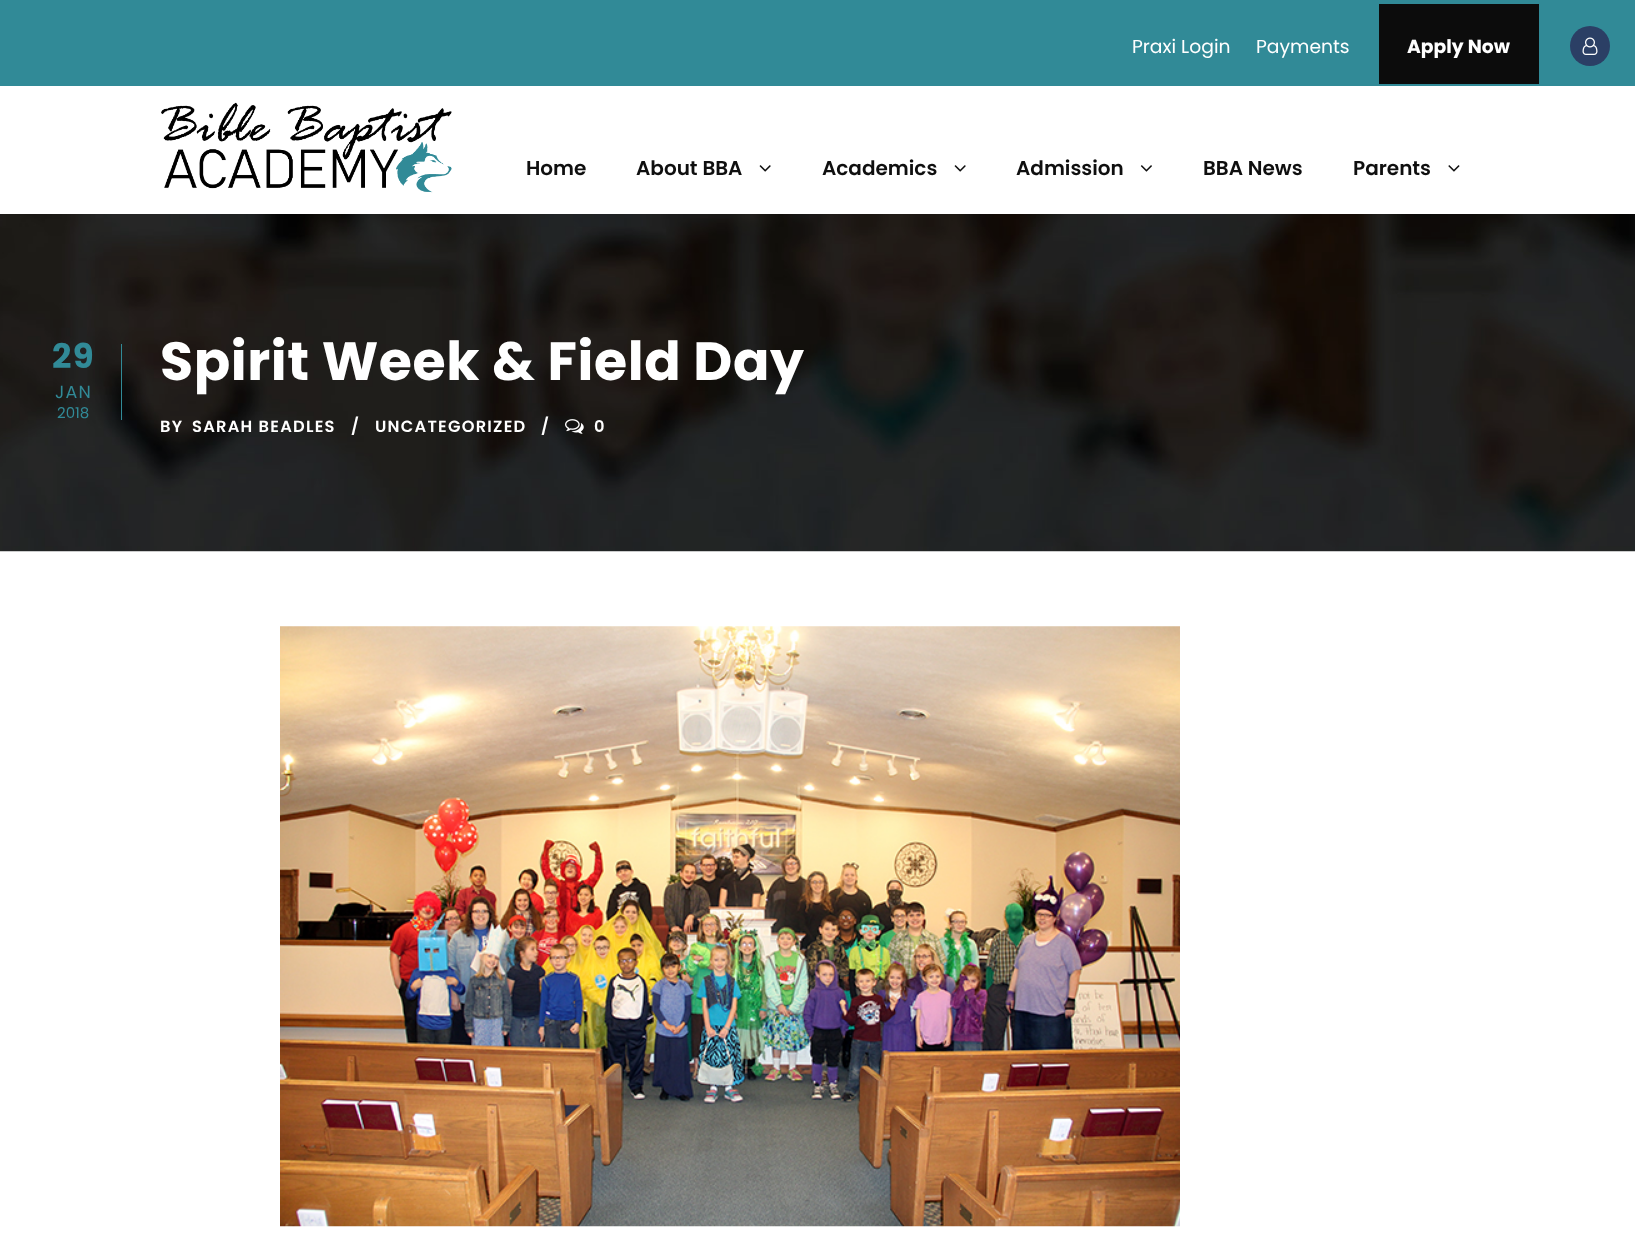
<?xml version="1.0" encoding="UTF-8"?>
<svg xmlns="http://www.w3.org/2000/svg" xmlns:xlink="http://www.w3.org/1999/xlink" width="1635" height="1236">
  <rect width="100%" height="100%" fill="#ffffff" />
  <rect width="1635" height="86" fill="#318a97" />
  <rect x="1379" y="4" width="160" height="80" fill="#0c0c0c" />
  <circle cx="1590" cy="46" r="20" fill="#2b3f65" />
  <image x="1582" y="37" width="16" height="18" xlink:href="image1.png" />
  <image x="161" y="102" width="291" height="91" xlink:href="image2.png" />
  <image x="759" y="165" width="12" height="7" xlink:href="image3.png" />
  <image x="954" y="165" width="12" height="7" xlink:href="image3.png" />
  <image x="1140" y="165" width="12" height="7" xlink:href="image4.png" />
  <image x="1448" y="165" width="12" height="7" xlink:href="image5.png" />
  <image x="0" y="214" width="1635" height="338" xlink:href="image6.png" />
  <rect x="121" y="344" width="1" height="76" fill="#318a97" />
  <image x="565" y="419" width="19" height="15" xlink:href="image7.png" />
  <image x="280" y="626" width="900" height="601" xlink:href="image8.png" />
  <text x="1132" y="53" style="font-family: Poppins; font-size: 18.75px; fill: #ffffff">Praxi Login</text>
  <text x="1256" y="53" style="font-family: Poppins; font-size: 18.75px; fill: #ffffff">Payments</text>
  <text x="1407" y="53" style="font-family: Poppins; font-size: 18.75px; font-weight: bold; fill: #ffffff">Apply Now</text>
  <text x="526" y="175" style="font-family: Poppins; font-size: 20px; font-weight: 600; fill: #0f0f0f">Home</text>
  <text x="636" y="175" style="font-family: Poppins; font-size: 20px; font-weight: 600; fill: #0f0f0f">About BBA</text>
  <text x="822" y="175" style="font-family: Poppins; font-size: 20px; font-weight: 600; fill: #0f0f0f">Academics</text>
  <text x="1016" y="175" style="font-family: Poppins; font-size: 20px; font-weight: 600; fill: #0f0f0f">Admission</text>
  <text x="1203" y="175" style="font-family: Poppins; font-size: 20px; font-weight: 600; fill: #0f0f0f">BBA News</text>
  <text x="1353" y="175" style="font-family: Poppins; font-size: 20px; font-weight: 600; fill: #0f0f0f">Parents</text>
  <text x="52" y="368" style="font-family: Poppins; font-size: 34px; font-weight: bold; letter-spacing: 1.25px; fill: #318a97">29</text>
  <text x="55" y="398" style="font-family: Poppins; font-size: 17.5px; letter-spacing: 1.25px; fill: #318a97">JAN</text>
  <text x="57" y="418" style="font-family: Poppins; font-size: 15px; fill: #318a97">2018</text>
  <text x="160" y="380" style="font-family: Poppins; font-size: 53.75px; font-weight: bold; letter-spacing: 0.6px; fill: #ffffff">Spirit Week &amp; Field Day</text>
  <text x="160" y="432" style="font-family: Poppins; font-size: 16.25px; font-weight: 600; letter-spacing: 1.25px; fill: #ffffff">BY</text>
  <text x="192" y="432" style="font-family: Poppins; font-size: 16.25px; font-weight: 600; letter-spacing: 1.25px; fill: #ffffff">SARAH BEADLES</text>
  <text x="351" y="432" style="font-family: Poppins; font-size: 16.25px; font-weight: 600; letter-spacing: 1.25px; fill: #ffffff">/</text>
  <text x="375" y="432" style="font-family: Poppins; font-size: 16.25px; font-weight: 600; letter-spacing: 1.25px; fill: #ffffff">UNCATEGORIZED</text>
  <text x="541" y="432" style="font-family: Poppins; font-size: 16.25px; font-weight: 600; letter-spacing: 1.25px; fill: #ffffff">/</text>
  <text x="594" y="432" style="font-family: Poppins; font-size: 16.25px; font-weight: 600; letter-spacing: 1.25px; fill: #ffffff">0</text>
</svg>
